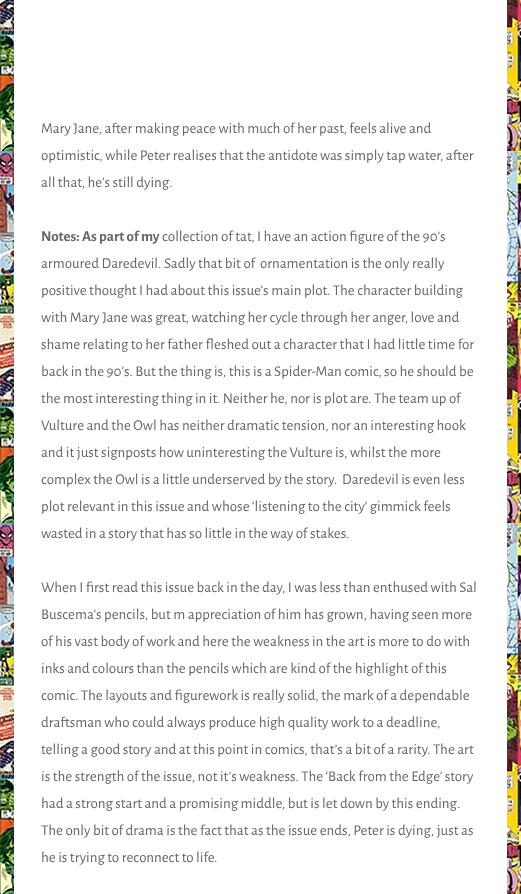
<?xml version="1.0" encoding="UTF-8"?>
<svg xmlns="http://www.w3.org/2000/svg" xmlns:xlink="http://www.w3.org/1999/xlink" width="521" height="894">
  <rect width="100%" height="100%" fill="#ffffff" />
  <image x="0" y="0" width="521" height="894" xlink:href="image1.png" />
  <rect x="14" width="493" height="894" fill="#ffffff" />
  <text x="41" y="133" style="font-family: Alegreya Sans; font-size: 15px; fill: #666666">Mary Jane, after making peace with much of her past, feels alive and</text>
  <text x="41" y="160" style="font-family: Alegreya Sans; font-size: 15px; fill: #666666">optimistic, while Peter realises that the antidote was simply tap water, after</text>
  <text x="41" y="187" style="font-family: Alegreya Sans; font-size: 15px; fill: #666666">all that, he’s still dying.</text>
  <text x="41" y="241" style="font-family: Alegreya Sans; font-size: 15px; font-weight: bold; fill: #666666">Notes: As part of my</text>
  <text x="162" y="241" style="font-family: Alegreya Sans; font-size: 15px; fill: #666666">collection of tat, I have an action figure of the 90’s</text>
  <text x="41" y="268" style="font-family: Alegreya Sans; font-size: 15px; fill: #666666" xml:space="preserve">armoured Daredevil. Sadly that bit of  ornamentation is the only really</text>
  <text x="41" y="295" style="font-family: Alegreya Sans; font-size: 15px; fill: #666666">positive thought I had about this issue’s main plot. The character building</text>
  <text x="41" y="322" style="font-family: Alegreya Sans; font-size: 15px; fill: #666666">with Mary Jane was great, watching her cycle through her anger, love and</text>
  <text x="41" y="349" style="font-family: Alegreya Sans; font-size: 15px; fill: #666666">shame relating to her father fleshed out a character that I had little time for</text>
  <text x="41" y="376" style="font-family: Alegreya Sans; font-size: 15px; fill: #666666">back in the 90’s. But the thing is, this is a Spider-Man comic, so he should be</text>
  <text x="41" y="403" style="font-family: Alegreya Sans; font-size: 15px; fill: #666666">the most interesting thing in it. Neither he, nor is plot are. The team up of</text>
  <text x="41" y="430" style="font-family: Alegreya Sans; font-size: 15px; fill: #666666">Vulture and the Owl has neither dramatic tension, nor an interesting hook</text>
  <text x="41" y="457" style="font-family: Alegreya Sans; font-size: 15px; fill: #666666">and it just signposts how uninteresting the Vulture is, whilst the more</text>
  <text x="41" y="484" style="font-family: Alegreya Sans; font-size: 15px; fill: #666666" xml:space="preserve">complex the Owl is a little underserved by the story.  Daredevil is even less</text>
  <text x="41" y="511" style="font-family: Alegreya Sans; font-size: 15px; fill: #666666">plot relevant in this issue and whose ‘listening to the city’ gimmick feels</text>
  <text x="41" y="538" style="font-family: Alegreya Sans; font-size: 15px; fill: #666666">wasted in a story that has so little in the way of stakes.</text>
  <text x="41" y="592" style="font-family: Alegreya Sans; font-size: 15px; fill: #666666">When I first read this issue back in the day, I was less than enthused with Sal</text>
  <text x="41" y="619" style="font-family: Alegreya Sans; font-size: 15px; fill: #666666">Buscema’s pencils, but m appreciation of him has grown, having seen more</text>
  <text x="41" y="646" style="font-family: Alegreya Sans; font-size: 15px; fill: #666666">of his vast body of work and here the weakness in the art is more to do with</text>
  <text x="41" y="673" style="font-family: Alegreya Sans; font-size: 15px; fill: #666666">inks and colours than the pencils which are kind of the highlight of this</text>
  <text x="41" y="700" style="font-family: Alegreya Sans; font-size: 15px; fill: #666666">comic. The layouts and figurework is really solid, the mark of a dependable</text>
  <text x="41" y="727" style="font-family: Alegreya Sans; font-size: 15px; fill: #666666">draftsman who could always produce high quality work to a deadline,</text>
  <text x="41" y="754" style="font-family: Alegreya Sans; font-size: 15px; fill: #666666">telling a good story and at this point in comics, that’s a bit of a rarity. The art</text>
  <text x="41" y="781" style="font-family: Alegreya Sans; font-size: 15px; fill: #666666">is the strength of the issue, not it’s weakness. The ‘Back from the Edge’ story</text>
  <text x="41" y="808" style="font-family: Alegreya Sans; font-size: 15px; fill: #666666">had a strong start and a promising middle, but is let down by this ending.</text>
  <text x="41" y="835" style="font-family: Alegreya Sans; font-size: 15px; fill: #666666">The only bit of drama is the fact that as the issue ends, Peter is dying, just as</text>
  <text x="41" y="862" style="font-family: Alegreya Sans; font-size: 15px; fill: #666666">he is trying to reconnect to life.</text>
</svg>
